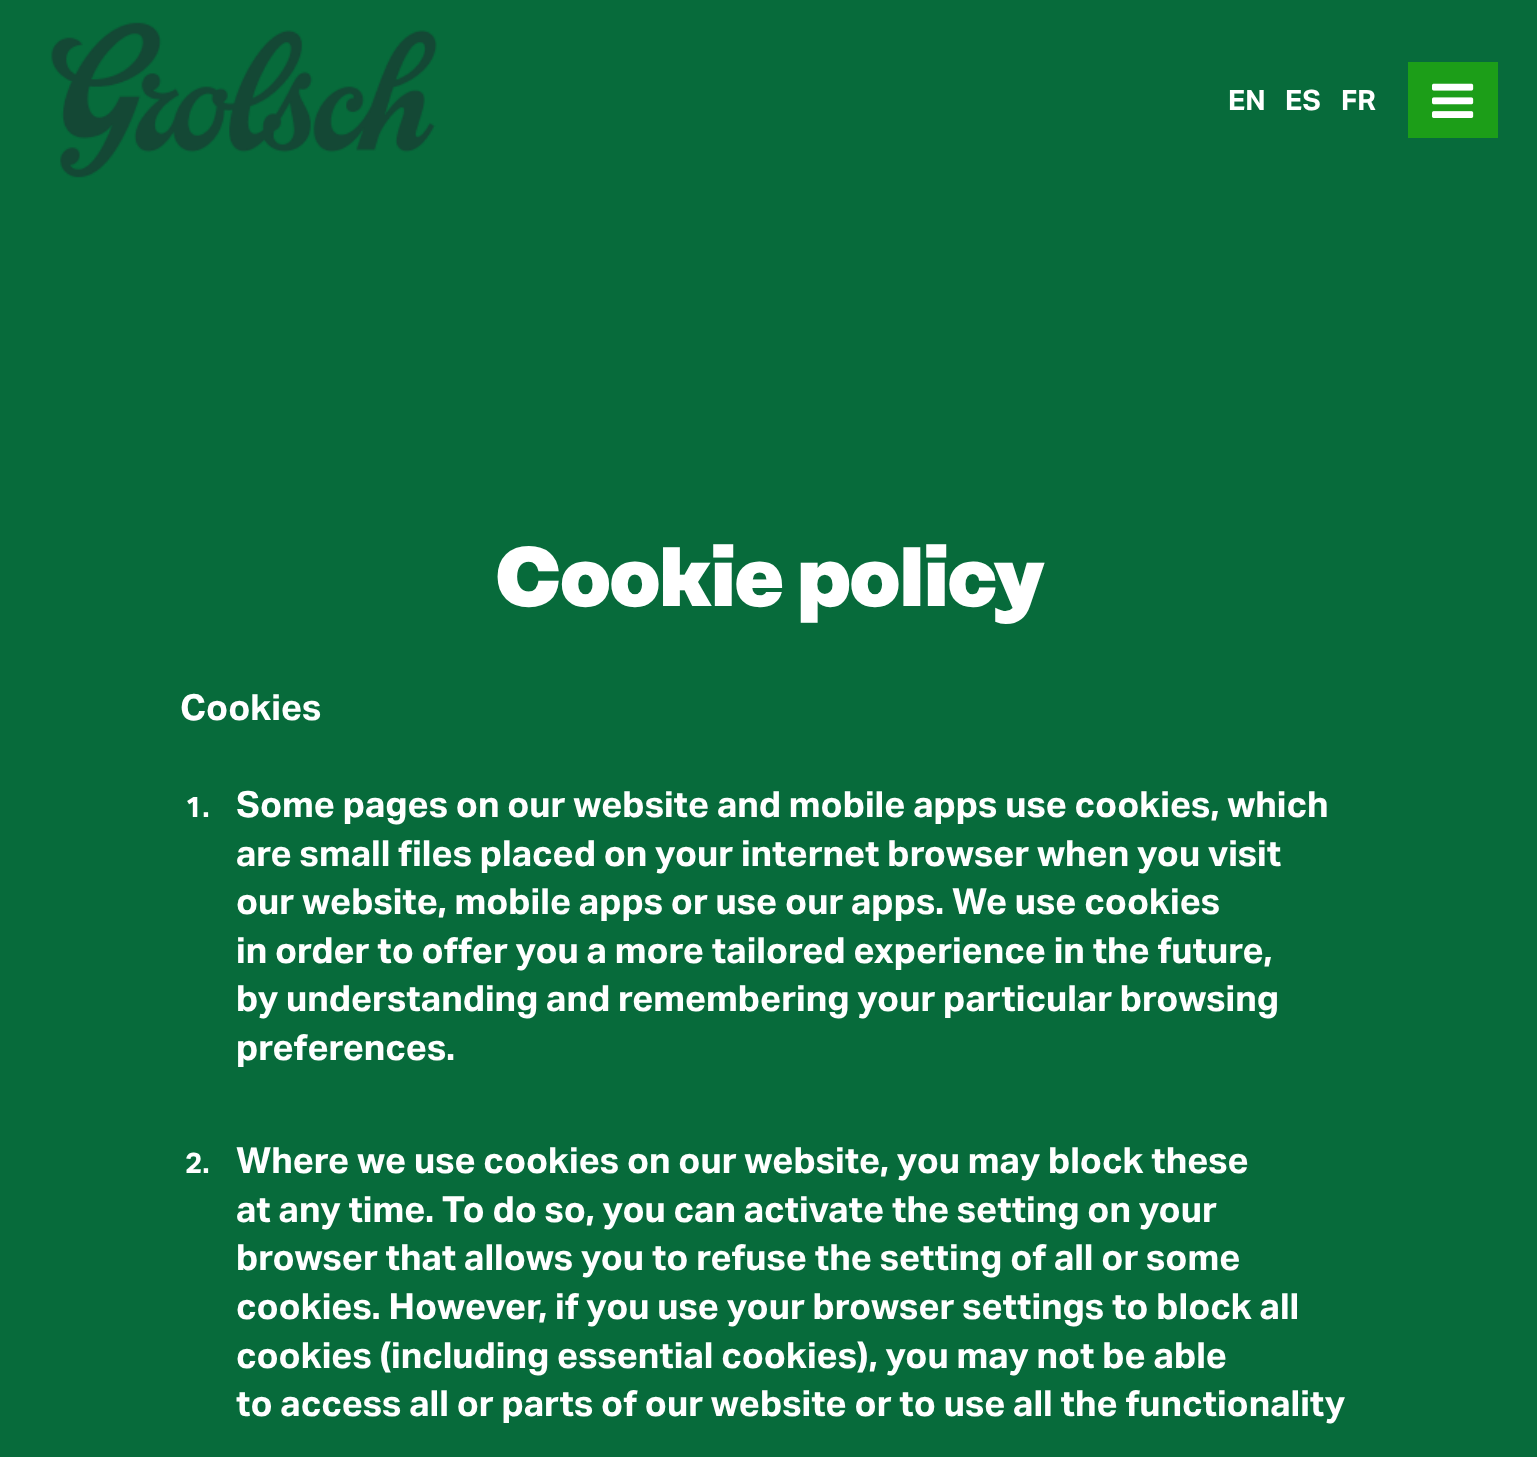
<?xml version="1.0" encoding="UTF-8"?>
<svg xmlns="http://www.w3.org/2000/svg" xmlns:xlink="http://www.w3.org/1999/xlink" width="1537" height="1457">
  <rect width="100%" height="100%" fill="#076b3b" />
  <image x="51" y="22" width="386" height="156" xlink:href="image1.png" />
  <rect x="1408" y="62" width="90" height="76" fill="#1c9e18" />
  <image x="1432" y="83" width="42" height="35" xlink:href="image2.png" />
  <text x="1228" y="110" style="font-family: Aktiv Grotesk; font-size: 28px; font-weight: bold; fill: #ffffff">EN</text>
  <text x="1285" y="110" style="font-family: Aktiv Grotesk; font-size: 28px; font-weight: bold; fill: #ffffff">ES</text>
  <text x="1341" y="110" style="font-family: Aktiv Grotesk; font-size: 28px; font-weight: bold; fill: #ffffff">FR</text>
  <text x="495" y="606" style="font-family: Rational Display; font-size: 84px; font-weight: 800; letter-spacing: -1.4px; fill: #ffffff">Cookie policy</text>
  <text x="180" y="720" style="font-family: Aktiv Grotesk; font-size: 36px; font-weight: bold; fill: #ffffff">Cookies</text>
  <text x="185" y="817" style="font-family: Aktiv Grotesk; font-size: 29px; font-weight: bold; fill: #ffffff">1.</text>
  <text x="236" y="817" style="font-family: Aktiv Grotesk; font-size: 36px; font-weight: bold; fill: #ffffff">Some pages on our website and mobile apps use cookies, which</text>
  <text x="236" y="866" style="font-family: Aktiv Grotesk; font-size: 36px; font-weight: bold; fill: #ffffff">are small files placed on your internet browser when you visit</text>
  <text x="236" y="914" style="font-family: Aktiv Grotesk; font-size: 36px; font-weight: bold; fill: #ffffff">our website, mobile apps or use our apps. We use cookies</text>
  <text x="236" y="963" style="font-family: Aktiv Grotesk; font-size: 36px; font-weight: bold; fill: #ffffff">in order to offer you a more tailored experience in the future,</text>
  <text x="236" y="1011" style="font-family: Aktiv Grotesk; font-size: 36px; font-weight: bold; fill: #ffffff">by understanding and remembering your particular browsing</text>
  <text x="236" y="1060" style="font-family: Aktiv Grotesk; font-size: 36px; font-weight: bold; fill: #ffffff">preferences.</text>
  <text x="185" y="1173" style="font-family: Aktiv Grotesk; font-size: 29px; font-weight: bold; fill: #ffffff">2.</text>
  <text x="236" y="1173" style="font-family: Aktiv Grotesk; font-size: 36px; font-weight: bold; fill: #ffffff">Where we use cookies on our website, you may block these</text>
  <text x="236" y="1222" style="font-family: Aktiv Grotesk; font-size: 36px; font-weight: bold; fill: #ffffff">at any time. To do so, you can activate the setting on your</text>
  <text x="236" y="1270" style="font-family: Aktiv Grotesk; font-size: 36px; font-weight: bold; fill: #ffffff">browser that allows you to refuse the setting of all or some</text>
  <text x="236" y="1319" style="font-family: Aktiv Grotesk; font-size: 36px; font-weight: bold; fill: #ffffff">cookies. However, if you use your browser settings to block all</text>
  <text x="236" y="1368" style="font-family: Aktiv Grotesk; font-size: 36px; font-weight: bold; fill: #ffffff">cookies (including essential cookies), you may not be able</text>
  <text x="236" y="1416" style="font-family: Aktiv Grotesk; font-size: 36px; font-weight: bold; fill: #ffffff">to access all or parts of our website or to use all the functionality</text>
</svg>
